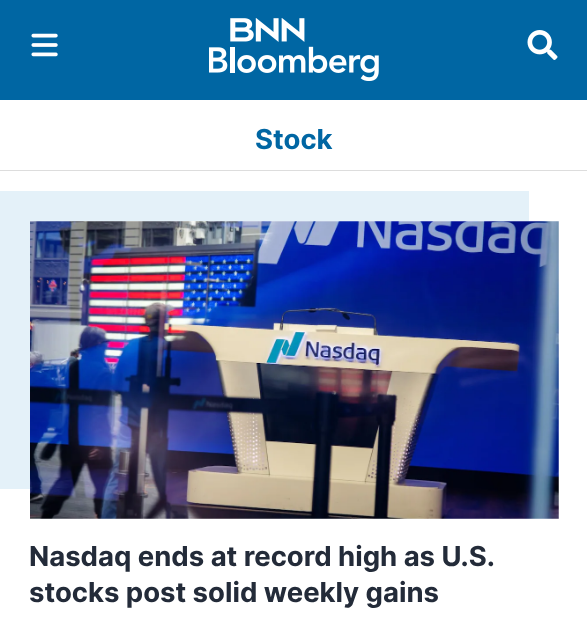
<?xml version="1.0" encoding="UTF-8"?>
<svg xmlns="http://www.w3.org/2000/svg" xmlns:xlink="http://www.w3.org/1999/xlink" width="587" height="626">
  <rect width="100%" height="100%" fill="#ffffff" />
  <rect width="587" height="100" fill="#0066a3" />
  <image x="31" y="33" width="27" height="24" xlink:href="image1.png" />
  <image x="209" y="18" width="170" height="63" xlink:href="image2.png" />
  <image x="527" y="30" width="31" height="30" xlink:href="image3.png" />
  <rect y="170" width="587" height="1" fill="#dddddd" />
  <path d="M 0 191 v 298 h 30 v -268 h 499 v -30 z" fill="#e4f1f9" />
  <image x="30" y="221" width="529" height="298" xlink:href="image4.png" />
  <text x="255" y="149" style="font-family: Inter; font-size: 27.5px; font-weight: bold; fill: #0066a3">Stock</text>
  <text x="29" y="566" style="font-family: Inter; font-size: 27.5px; font-weight: bold; fill: #232b39">Nasdaq ends at record high as U.S.</text>
  <text x="29" y="602" style="font-family: Inter; font-size: 27.5px; font-weight: bold; fill: #232b39">stocks post solid weekly gains</text>
</svg>
